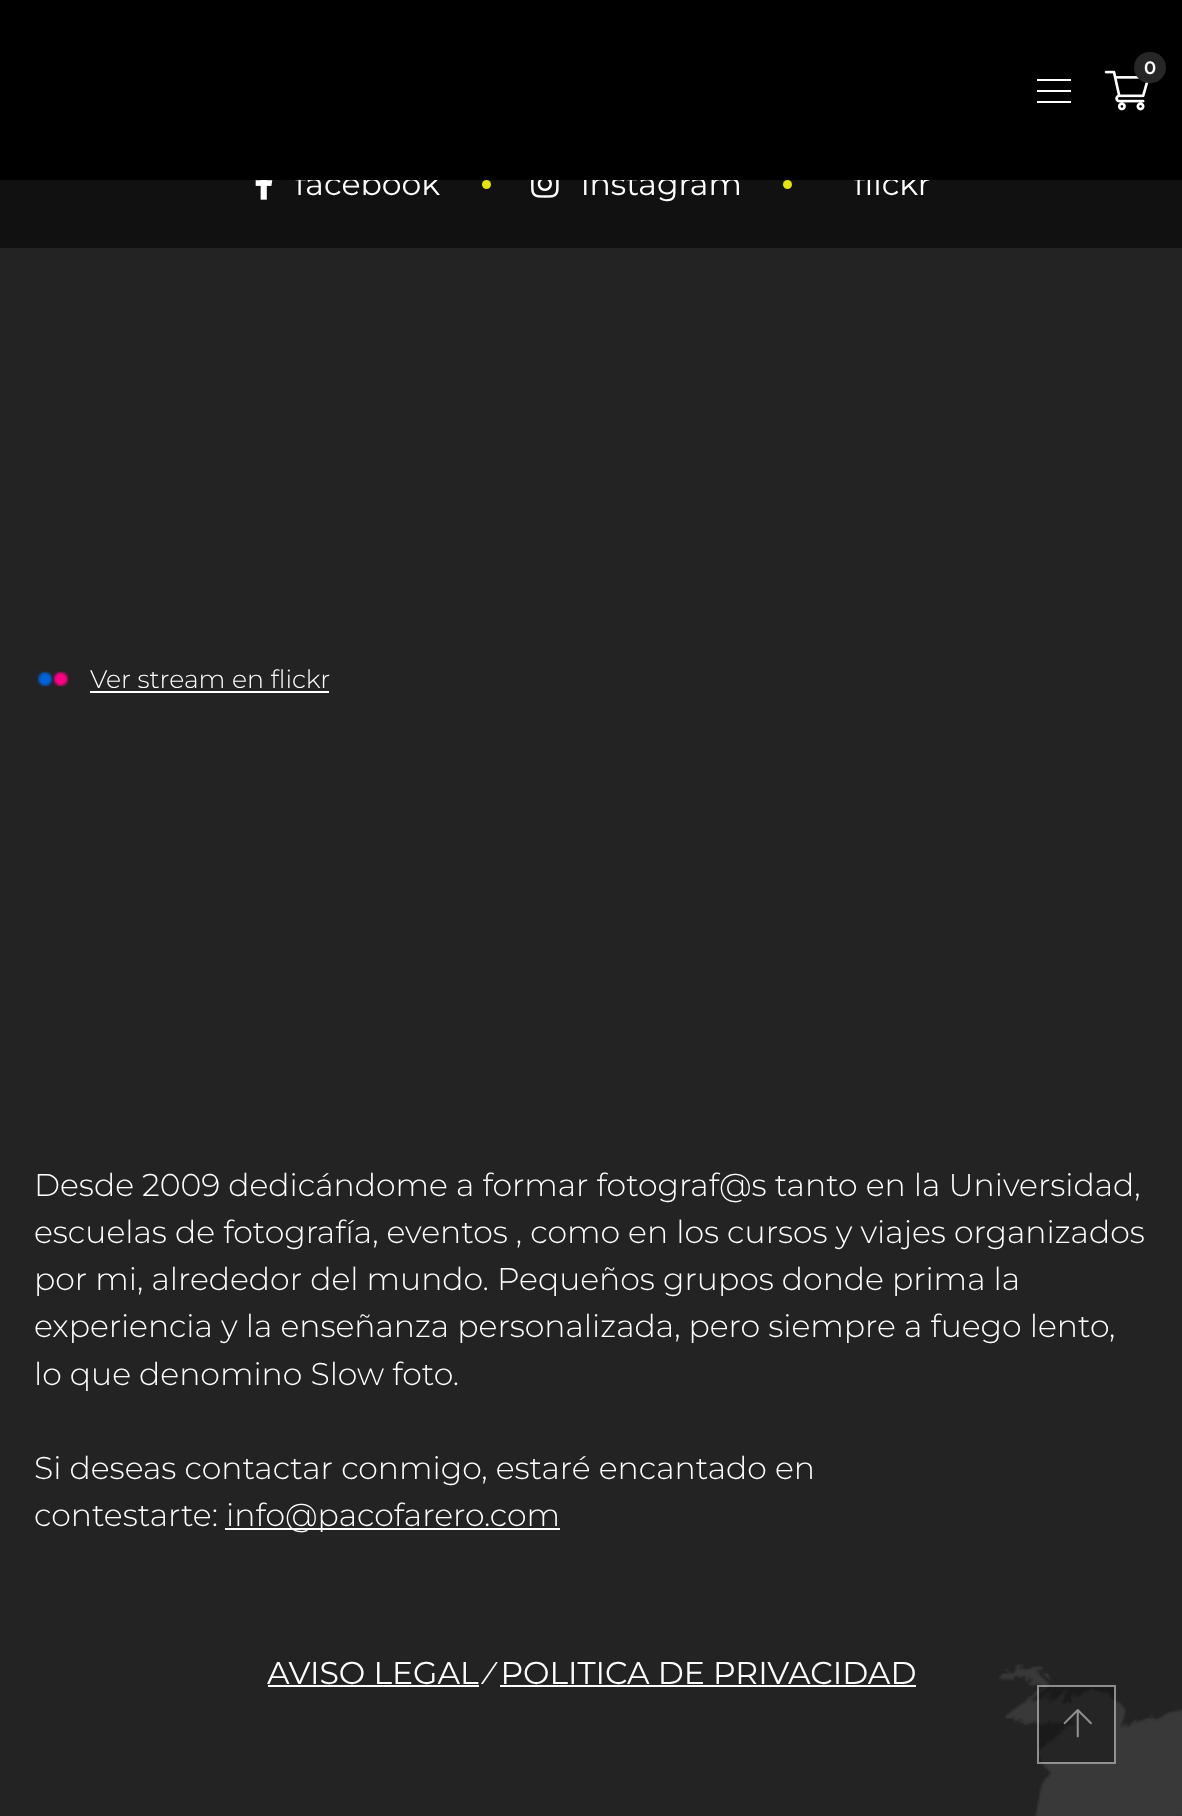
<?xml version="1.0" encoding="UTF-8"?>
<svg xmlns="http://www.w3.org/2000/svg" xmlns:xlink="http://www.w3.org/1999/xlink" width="1182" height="1816">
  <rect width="100%" height="100%" fill="#111111" />
  <image x="255" y="180" width="18" height="20" xlink:href="image2.png" />
  <circle cx="486.5" cy="184.5" r="4.5" fill="#e4e406" />
  <image x="531" y="180" width="28" height="18" xlink:href="image3.png" />
  <circle cx="787.5" cy="184.5" r="4.5" fill="#e4e406" />
  <rect y="248" width="1182" height="1568" fill="#232323" />
  <image x="999" y="1664" width="183" height="152" xlink:href="image4.png" />
  <image x="37" y="671" width="32" height="16" xlink:href="image5.png" />
  <rect x="90" y="691" width="239" height="2" fill="#ffffff" />
  <rect x="225" y="1528" width="335" height="2" fill="#ffffff" />
  <rect x="268" y="1685" width="211" height="2" fill="#ffffff" />
  <rect x="500" y="1685" width="416" height="2" fill="#ffffff" />
  <rect x="1037" y="1685" width="79" height="79" fill="#111111" fill-opacity="0.5" />
  <rect x="1038" y="1686" width="77" height="77" fill="none" stroke="#ffffff" stroke-opacity="0.5" stroke-width="2" />
  <image x="1063" y="1709" width="29" height="29" xlink:href="image6.png" />
  <text x="295" y="195" style="font-family: Montserrat; font-size: 31.5px; fill: #ffffff">facebook</text>
  <text x="581" y="195" style="font-family: Montserrat; font-size: 31.5px; fill: #ffffff">instagram</text>
  <text x="854" y="195" style="font-family: Montserrat; font-size: 31.5px; fill: #ffffff">flickr</text>
  <rect width="1182" height="180" fill="#000000" />
  <image x="1104" y="70" width="45" height="41" xlink:href="image1.png" />
  <rect x="1134" y="52" width="32" height="31" rx="15.5" fill="#272626" />
  <text x="1144" y="74" style="font-family: Montserrat; font-size: 18px; font-weight: 600; fill: #ffffff">0</text>
  <rect x="1037" y="101" width="34" height="2" fill="#ffffff" />
  <rect x="1037" y="90" width="34" height="2" fill="#ffffff" />
  <rect x="1037" y="79" width="34" height="2" fill="#ffffff" />
  <text x="90" y="688" style="font-family: Montserrat; font-size: 25.25px; font-weight: 300; fill: #ffffff">Ver stream en flickr</text>
  <text x="34" y="1196" style="font-family: Montserrat; font-size: 31.5px; font-weight: 300; fill: #ffffff">Desde 2009 dedicándome a formar fotograf@s tanto en la Universidad,</text>
  <text x="34" y="1243" style="font-family: Montserrat; font-size: 31.5px; font-weight: 300; fill: #ffffff">escuelas de fotografía, eventos , como en los cursos y viajes organizados</text>
  <text x="34" y="1290" style="font-family: Montserrat; font-size: 31.5px; font-weight: 300; fill: #ffffff">por mi, alrededor del mundo. Pequeños grupos donde prima la</text>
  <text x="34" y="1337" style="font-family: Montserrat; font-size: 31.5px; font-weight: 300; fill: #ffffff">experiencia y la enseñanza personalizada, pero siempre a fuego lento,</text>
  <text x="34" y="1385" style="font-family: Montserrat; font-size: 31.5px; font-weight: 300; fill: #ffffff">lo que denomino Slow foto.</text>
  <text x="34" y="1479" style="font-family: Montserrat; font-size: 31.5px; font-weight: 300; fill: #ffffff">Si deseas contactar conmigo, estaré encantado en</text>
  <text x="34" y="1526" style="font-family: Montserrat; font-size: 31.5px; font-weight: 300; fill: #ffffff">contestarte:</text>
  <text x="226" y="1526" style="font-family: Montserrat; font-size: 31.5px; font-weight: 300; fill: #ffffff">info@pacofarero.com</text>
  <text x="267" y="1684" style="font-family: Montserrat; font-size: 31.5px; fill: #ffffff">AVISO LEGAL ⁄ POLITICA DE PRIVACIDAD</text>
</svg>
